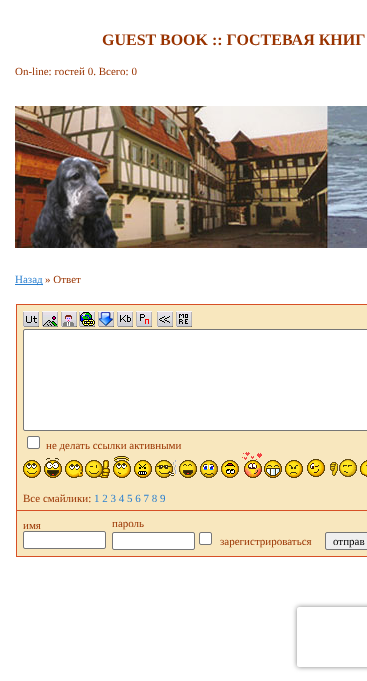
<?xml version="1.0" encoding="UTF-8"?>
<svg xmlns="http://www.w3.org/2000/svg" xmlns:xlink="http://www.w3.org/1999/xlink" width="367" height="681">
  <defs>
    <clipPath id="clip1"><path d="M 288 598 h 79 v 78 h -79 z m 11 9 h 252 c 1 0 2 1 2 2 v 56 c 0 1 -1 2 -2 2 h -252 c -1 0 -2 -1 -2 -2 v -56 c 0 -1 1 -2 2 -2 z" clip-rule="evenodd" /></clipPath>
  </defs>
  <rect width="100%" height="100%" fill="#ffffff" />
  <image x="15" y="106" width="352" height="142" xlink:href="image1.png" />
  <rect x="15" y="284" width="28" height="1" fill="#2c80d0" />
  <rect x="16" y="304" width="351" height="253" fill="#d75026" />
  <rect x="17" y="305" width="350" height="205" fill="#f8e7be" />
  <image x="23" y="311" width="16" height="16" xlink:href="image2.png" />
  <image x="42" y="311" width="16" height="16" xlink:href="image3.png" />
  <image x="61" y="311" width="16" height="16" xlink:href="image4.png" />
  <image x="79" y="311" width="16" height="16" xlink:href="image5.png" />
  <image x="98" y="311" width="16" height="16" xlink:href="image6.png" />
  <image x="117" y="311" width="16" height="16" xlink:href="image7.png" />
  <image x="136" y="311" width="16" height="16" xlink:href="image8.png" />
  <image x="157" y="311" width="16" height="16" xlink:href="image9.png" />
  <image x="176" y="311" width="16" height="16" xlink:href="image10.png" />
  <rect x="23.5" y="329.5" width="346" height="101" rx="1.5" fill="#ffffff" stroke="#767676" />
  <rect x="27.5" y="436.5" width="12" height="12" rx="1.5" fill="#ffffff" stroke="#767676" />
  <image x="23" y="460" width="18" height="18" xlink:href="image11.png" />
  <image x="44" y="458" width="18" height="20" xlink:href="image12.png" />
  <image x="65" y="460" width="18" height="18" xlink:href="image13.png" />
  <image x="85" y="460" width="25" height="18" xlink:href="image14.png" />
  <image x="113" y="456" width="18" height="22" xlink:href="image15.png" />
  <image x="134" y="460" width="18" height="18" xlink:href="image16.png" />
  <image x="155" y="460" width="22" height="18" xlink:href="image17.png" />
  <image x="179" y="460" width="18" height="18" xlink:href="image18.png" />
  <image x="200" y="460" width="18" height="18" xlink:href="image19.png" />
  <image x="221" y="460" width="18" height="18" xlink:href="image20.png" />
  <image x="242" y="452" width="20" height="26" xlink:href="image21.png" />
  <image x="264" y="460" width="18" height="18" xlink:href="image22.png" />
  <image x="285" y="460" width="18" height="18" xlink:href="image23.png" />
  <image x="307" y="459" width="18" height="18" xlink:href="image24.png" />
  <image x="330" y="459" width="27" height="18" xlink:href="image25.png" />
  <image x="360" y="460" width="7" height="17" xlink:href="image26.png" />
  <rect x="17" y="511" width="350" height="45" fill="#f8e7be" />
  <rect x="23.5" y="531.5" width="82" height="17" rx="1.5" fill="#ffffff" stroke="#767676" />
  <rect x="112.5" y="532.5" width="82" height="17" rx="1.5" fill="#ffffff" stroke="#767676" />
  <rect x="199.5" y="532.5" width="12" height="12" rx="1.5" fill="#ffffff" stroke="#767676" />
  <rect x="325.5" y="532.5" width="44" height="17" rx="1.5" fill="#efefef" stroke="#767676" />
  <g clip-path="url(#clip1)">
    <rect x="297" y="607" width="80" height="60" rx="2" fill="#808080" filter="blur(2.5px)" />
  </g>
  <text x="102" y="45" style="font-family: Liberation Serif; font-size: 16px; font-weight: bold; fill: #993300">GUEST BOOK :: ГОСТЕВАЯ КНИГ</text>
  <text x="15" y="75" style="font-family: Liberation Serif; font-size: 11px; fill: #993300">On-line: гостей 0. Всего: 0</text>
  <text x="15" y="283" style="font-family: Liberation Serif; font-size: 11px; fill: #2c80d0">Назад</text>
  <text x="45" y="283" style="font-family: Liberation Serif; font-size: 11px; fill: #993300">» Ответ</text>
  <text x="46" y="449" style="font-family: Liberation Serif; font-size: 11px; fill: #993300">не делать ссылки активными</text>
  <text x="23" y="502" style="font-family: Liberation Serif; font-size: 11px; fill: #993300">Все смайлики:</text>
  <text x="94" y="502" style="font-family: Liberation Serif; font-size: 11px; fill: #2c80d0">1 2 3 4 5 6 7 8 9</text>
  <text x="23" y="529" style="font-family: Liberation Serif; font-size: 11px; fill: #993300">имя</text>
  <text x="112" y="527" style="font-family: Liberation Serif; font-size: 11px; fill: #993300">пароль</text>
  <text x="220" y="545" style="font-family: Liberation Serif; font-size: 11px; fill: #993300">зарегистрироваться</text>
  <text x="333" y="545" style="font-family: Liberation Serif; font-size: 11px; fill: #000000">отправ</text>
</svg>
